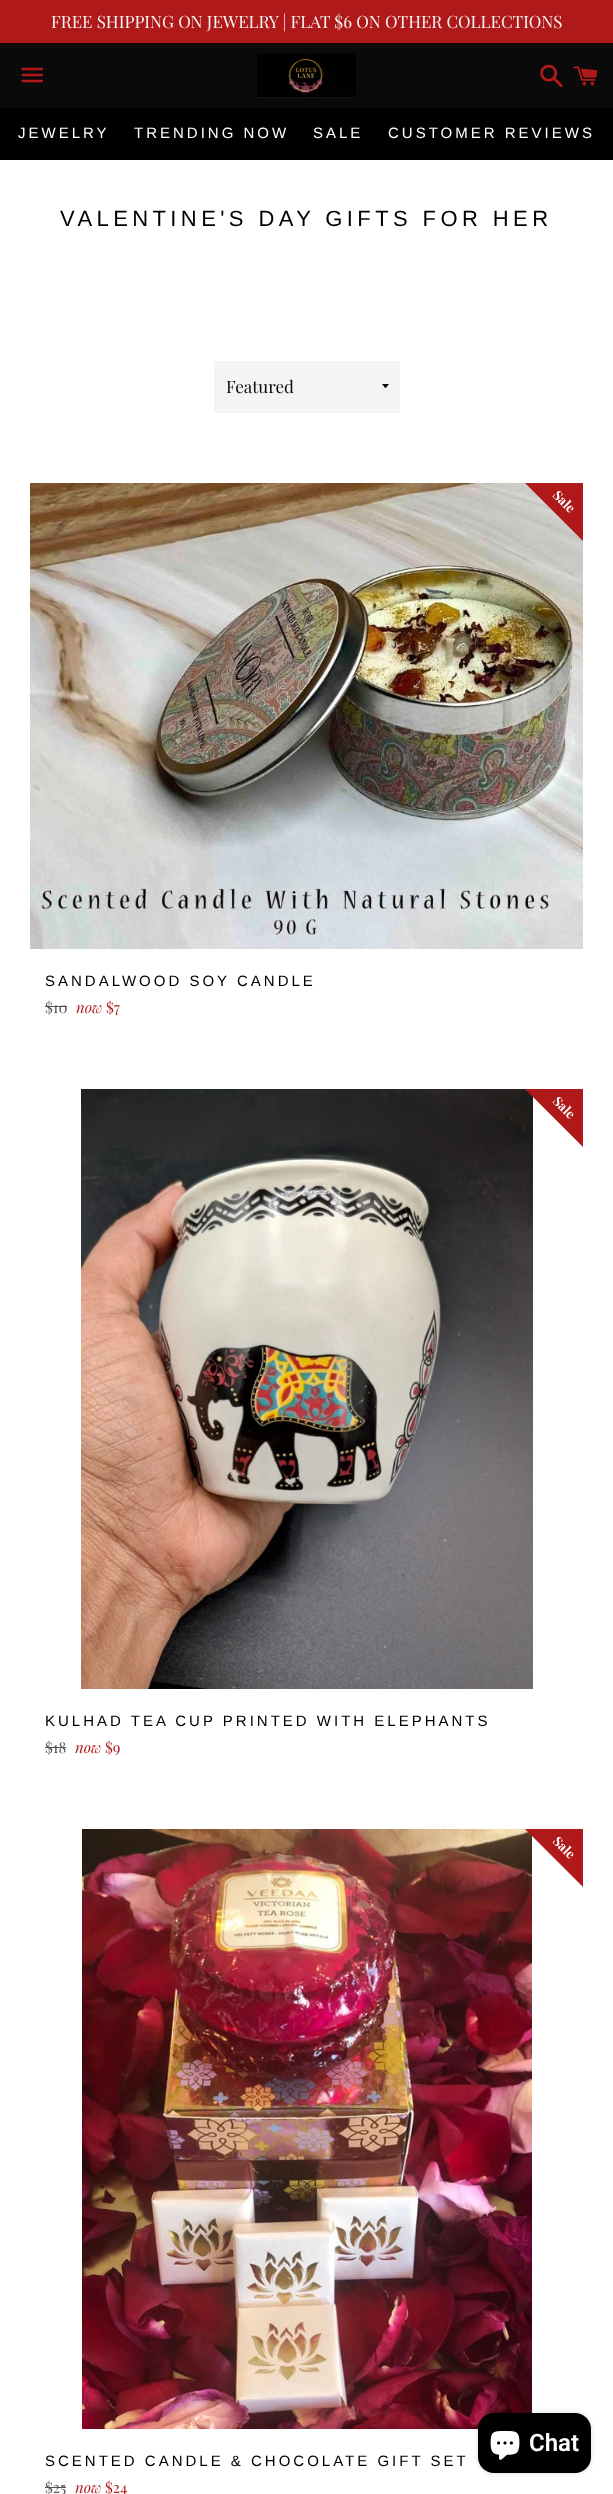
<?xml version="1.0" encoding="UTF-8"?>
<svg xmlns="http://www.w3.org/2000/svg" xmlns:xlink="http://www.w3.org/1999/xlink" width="613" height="2494">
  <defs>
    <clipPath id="clip1"><rect x="30" y="483" width="553" height="536" /></clipPath>
    <clipPath id="clip2"><rect x="30" y="1089" width="553" height="670" /></clipPath>
    <clipPath id="clip3"><rect x="30" y="1829" width="553" height="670" /></clipPath>
  </defs>
  <rect width="100%" height="100%" fill="#ffffff" />
  <rect width="613" height="43" fill="#b01919" />
  <rect y="43" width="613" height="65" fill="#0a0a0a" />
  <image x="21" y="67" width="23" height="16" xlink:href="image1.png" />
  <image x="256" y="54" width="100" height="44" xlink:href="image2.png" />
  <image x="540" y="64" width="23" height="24" xlink:href="image3.png" />
  <image x="573" y="66" width="25" height="20" xlink:href="image4.png" />
  <rect y="108" width="613" height="52" fill="#000000" />
  <rect x="214" y="361" width="186" height="52" fill="#f4f4f4" />
  <path d="M 382 384 c 4.5 5.5 2.5 5.5 7 0 z" fill="#0a0a0a" />
  <image x="30" y="483" width="553" height="466" xlink:href="image5.png" />
  <g clip-path="url(#clip1)">
    <path d="M 529 395 l 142 142 l -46 46 l -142 -142 z" fill="#b01919" />
  </g>
  <rect x="45" y="1006" width="22" height="1" fill="#545454" />
  <image x="81" y="1089" width="452" height="600" xlink:href="image6.png" />
  <g clip-path="url(#clip2)">
    <path d="M 529 1001 l 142 142 l -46 46 l -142 -142 z" fill="#b01919" />
  </g>
  <rect x="45" y="1747" width="21" height="1" fill="#545454" />
  <image x="82" y="1829" width="450" height="600" xlink:href="image7.png" />
  <g clip-path="url(#clip3)">
    <path d="M 529 1742 l 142 141 l -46 46 l -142 -142 z" fill="#b01919" />
  </g>
  <rect x="45" y="2487" width="21" height="1" fill="#545454" />
  <rect x="478" y="2413" width="113" height="60" rx="16" fill="#000000" fill-opacity="0.15" filter="blur(2.5px)" />
  <rect x="478" y="2413" width="113" height="60" rx="16" fill="#000000" />
  <image x="490" y="2431" width="30" height="29" xlink:href="image8.png" />
  <text x="51" y="28" style="font-family: Playfair Display; font-size: 17px; fill: #f4f4f4">FREE SHIPPING ON JEWELRY | FLAT $6 ON OTHER COLLECTIONS</text>
  <text x="18" y="138" style="font-family: Liberation Sans; font-size: 15px; letter-spacing: 3px; fill: #ffffff">JEWELRY</text>
  <text x="134" y="138" style="font-family: Liberation Sans; font-size: 15px; letter-spacing: 3px; fill: #ffffff">TRENDING NOW</text>
  <text x="313" y="138" style="font-family: Liberation Sans; font-size: 15px; letter-spacing: 3px; fill: #ffffff">SALE</text>
  <text x="388" y="138" style="font-family: Liberation Sans; font-size: 15px; letter-spacing: 3px; fill: #ffffff">CUSTOMER REVIEWS</text>
  <text x="60" y="226" style="font-family: Liberation Sans; font-size: 22px; letter-spacing: 4.4px; fill: #000000">VALENTINE'S DAY GIFTS FOR HER</text>
  <text x="226" y="393" style="font-family: Playfair Display; font-size: 17px; fill: #0a0a0a">Featured</text>
  <text x="552" y="496" transform="rotate(45 552 496)" style="font-family: Playfair Display; font-size: 13px; font-weight: bold; fill: #ffffff">Sale</text>
  <text x="45" y="986" style="font-family: Liberation Sans; font-size: 15px; letter-spacing: 3px; fill: #000000">SANDALWOOD SOY CANDLE</text>
  <text x="45" y="1013" style="font-family: Playfair Display; font-size: 15px; fill: #545454">$10</text>
  <text x="76" y="1013" style="font-family: Playfair Display; font-size: 15px; font-style: italic; fill: #b01919">now</text>
  <text x="106" y="1013" style="font-family: Playfair Display; font-size: 15px; fill: #b01919">$7</text>
  <text x="552" y="1102" transform="rotate(45 552 1102)" style="font-family: Playfair Display; font-size: 13px; font-weight: bold; fill: #ffffff">Sale</text>
  <text x="45" y="1726" style="font-family: Liberation Sans; font-size: 15px; letter-spacing: 3px; fill: #000000">KULHAD TEA CUP PRINTED WITH ELEPHANTS</text>
  <text x="45" y="1753" style="font-family: Playfair Display; font-size: 15px; fill: #545454">$18</text>
  <text x="75" y="1753" style="font-family: Playfair Display; font-size: 15px; font-style: italic; fill: #b01919">now</text>
  <text x="105" y="1753" style="font-family: Playfair Display; font-size: 15px; fill: #b01919">$9</text>
  <text x="552" y="1842" transform="rotate(45 552 1842)" style="font-family: Playfair Display; font-size: 13px; font-weight: bold; fill: #ffffff">Sale</text>
  <text x="45" y="2466" style="font-family: Liberation Sans; font-size: 15px; letter-spacing: 3px; fill: #000000">SCENTED CANDLE &amp; CHOCOLATE GIFT SET</text>
  <text x="45" y="2493" style="font-family: Playfair Display; font-size: 15px; fill: #545454">$25</text>
  <text x="75" y="2493" style="font-family: Playfair Display; font-size: 15px; font-style: italic; fill: #b01919">now</text>
  <text x="105" y="2493" style="font-family: Playfair Display; font-size: 15px; fill: #b01919">$24</text>
  <text x="529" y="2451" style="font-family: Roboto; font-size: 24px; font-weight: 600; fill: #ffffff">Chat</text>
</svg>
